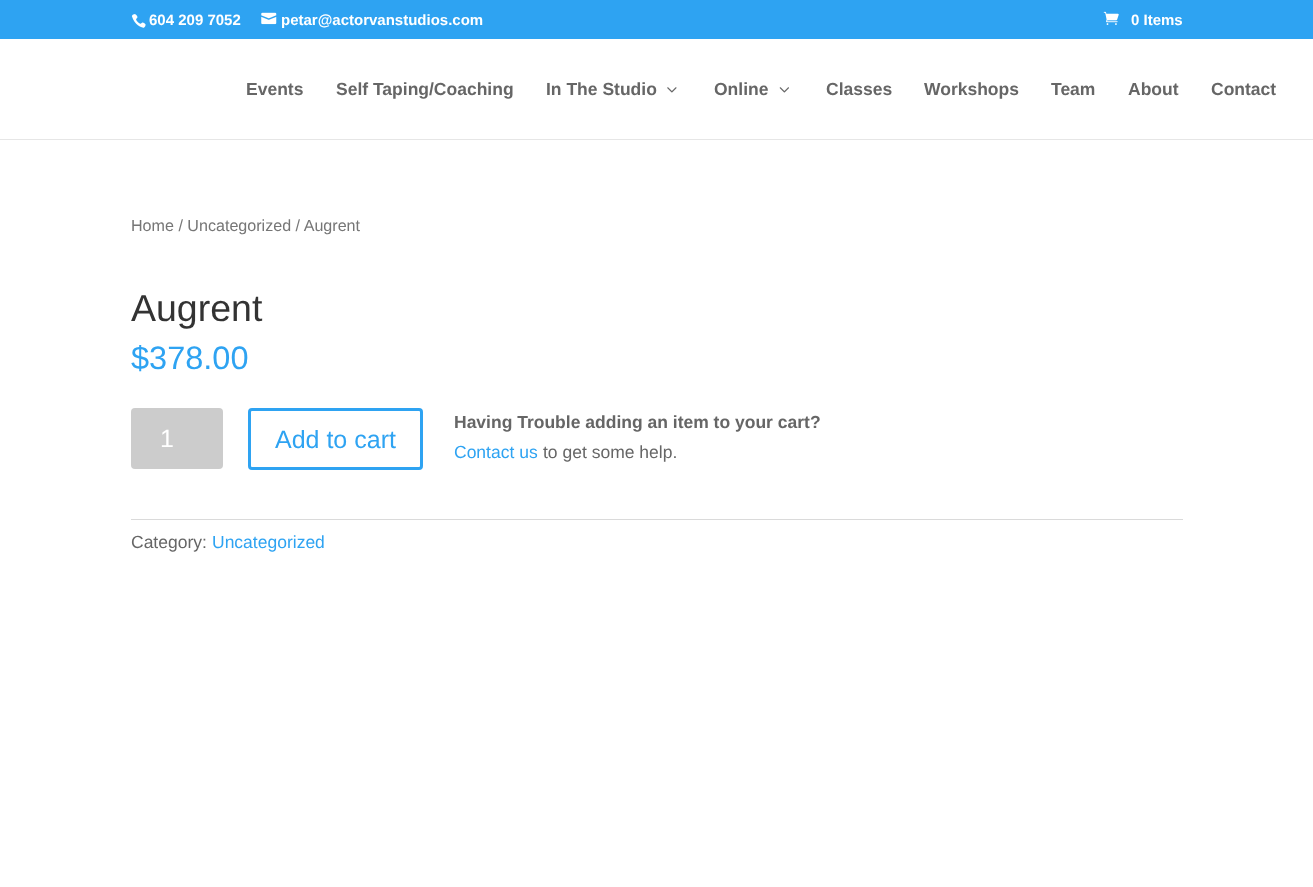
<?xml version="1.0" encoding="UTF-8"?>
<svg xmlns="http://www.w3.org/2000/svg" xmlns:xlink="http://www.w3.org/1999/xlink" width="1313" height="887">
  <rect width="100%" height="100%" fill="#2ea3f2" />
  <image x="131" y="14" width="15" height="14" xlink:href="image1.png" />
  <image x="261" y="12" width="16" height="13" xlink:href="image2.png" />
  <image x="1103" y="11" width="16" height="14" xlink:href="image3.png" />
  <path d="M 0 139 v 1 h 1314 v -100 v 99 z" fill="#e6e6e6" />
  <rect y="39" width="1313" height="100" fill="#ffffff" />
  <image x="667" y="87" width="10" height="6" xlink:href="image4.png" />
  <image x="779" y="87" width="10" height="6" xlink:href="image5.png" />
  <rect y="140" width="1313" height="747" fill="#ffffff" />
  <rect x="131" y="408" width="92" height="61" rx="4" fill="#cccccc" />
  <rect x="249.5" y="409.5" width="172" height="59" rx="2.5" fill="none" stroke="#2ea3f2" stroke-width="3" />
  <rect x="131" y="519" width="1052" height="1" fill="#dadada" />
  <text x="149" y="25" style="font-family: Liberation Sans; font-size: 15px; font-weight: bold; fill: #ffffff">604 209 7052</text>
  <text x="281" y="25" style="font-family: Liberation Sans; font-size: 15px; font-weight: bold; fill: #ffffff">petar@actorvanstudios.com</text>
  <text x="1131" y="25" style="font-family: Liberation Sans; font-size: 15px; font-weight: bold; fill: #ffffff">0 Items</text>
  <text x="246" y="95" style="font-family: Liberation Sans; font-size: 17.5px; font-weight: bold; fill: #666666">Events</text>
  <text x="336" y="95" style="font-family: Liberation Sans; font-size: 17.5px; font-weight: bold; fill: #666666">Self Taping/Coaching</text>
  <text x="546" y="95" style="font-family: Liberation Sans; font-size: 17.5px; font-weight: bold; fill: #666666">In The Studio</text>
  <text x="714" y="95" style="font-family: Liberation Sans; font-size: 17.5px; font-weight: bold; fill: #666666">Online</text>
  <text x="826" y="95" style="font-family: Liberation Sans; font-size: 17.5px; font-weight: bold; fill: #666666">Classes</text>
  <text x="924" y="95" style="font-family: Liberation Sans; font-size: 17.5px; font-weight: bold; fill: #666666">Workshops</text>
  <text x="1051" y="95" style="font-family: Liberation Sans; font-size: 17.5px; font-weight: bold; fill: #666666">Team</text>
  <text x="1128" y="95" style="font-family: Liberation Sans; font-size: 17.5px; font-weight: bold; fill: #666666">About</text>
  <text x="1211" y="95" style="font-family: Liberation Sans; font-size: 17.5px; font-weight: bold; fill: #666666">Contact</text>
  <text x="131" y="231" style="font-family: Liberation Sans; font-size: 16.1px; fill: #767676">Home / Uncategorized / Augrent</text>
  <text x="131" y="321" style="font-family: Liberation Sans; font-size: 37.5px; fill: #333333">Augrent</text>
  <text x="131" y="369" style="font-family: Liberation Sans; font-size: 32.5px; fill: #2ea3f2">$378.00</text>
  <text x="160" y="447" style="font-family: Liberation Sans; font-size: 25px; fill: #ffffff">1</text>
  <text x="275" y="448" style="font-family: Liberation Sans; font-size: 25px; fill: #2ea3f2">Add to cart</text>
  <text x="454" y="428" style="font-family: Liberation Sans; font-size: 17.5px; font-weight: bold; fill: #666666">Having Trouble adding an item to your cart?</text>
  <text x="454" y="458" style="font-family: Liberation Sans; font-size: 17.5px; fill: #2ea3f2">Contact us</text>
  <text x="543" y="458" style="font-family: Liberation Sans; font-size: 17.5px; fill: #666666">to get some help.</text>
  <text x="131" y="548" style="font-family: Liberation Sans; font-size: 17.5px; fill: #666666">Category:</text>
  <text x="212" y="548" style="font-family: Liberation Sans; font-size: 17.5px; fill: #2ea3f2">Uncategorized</text>
</svg>
